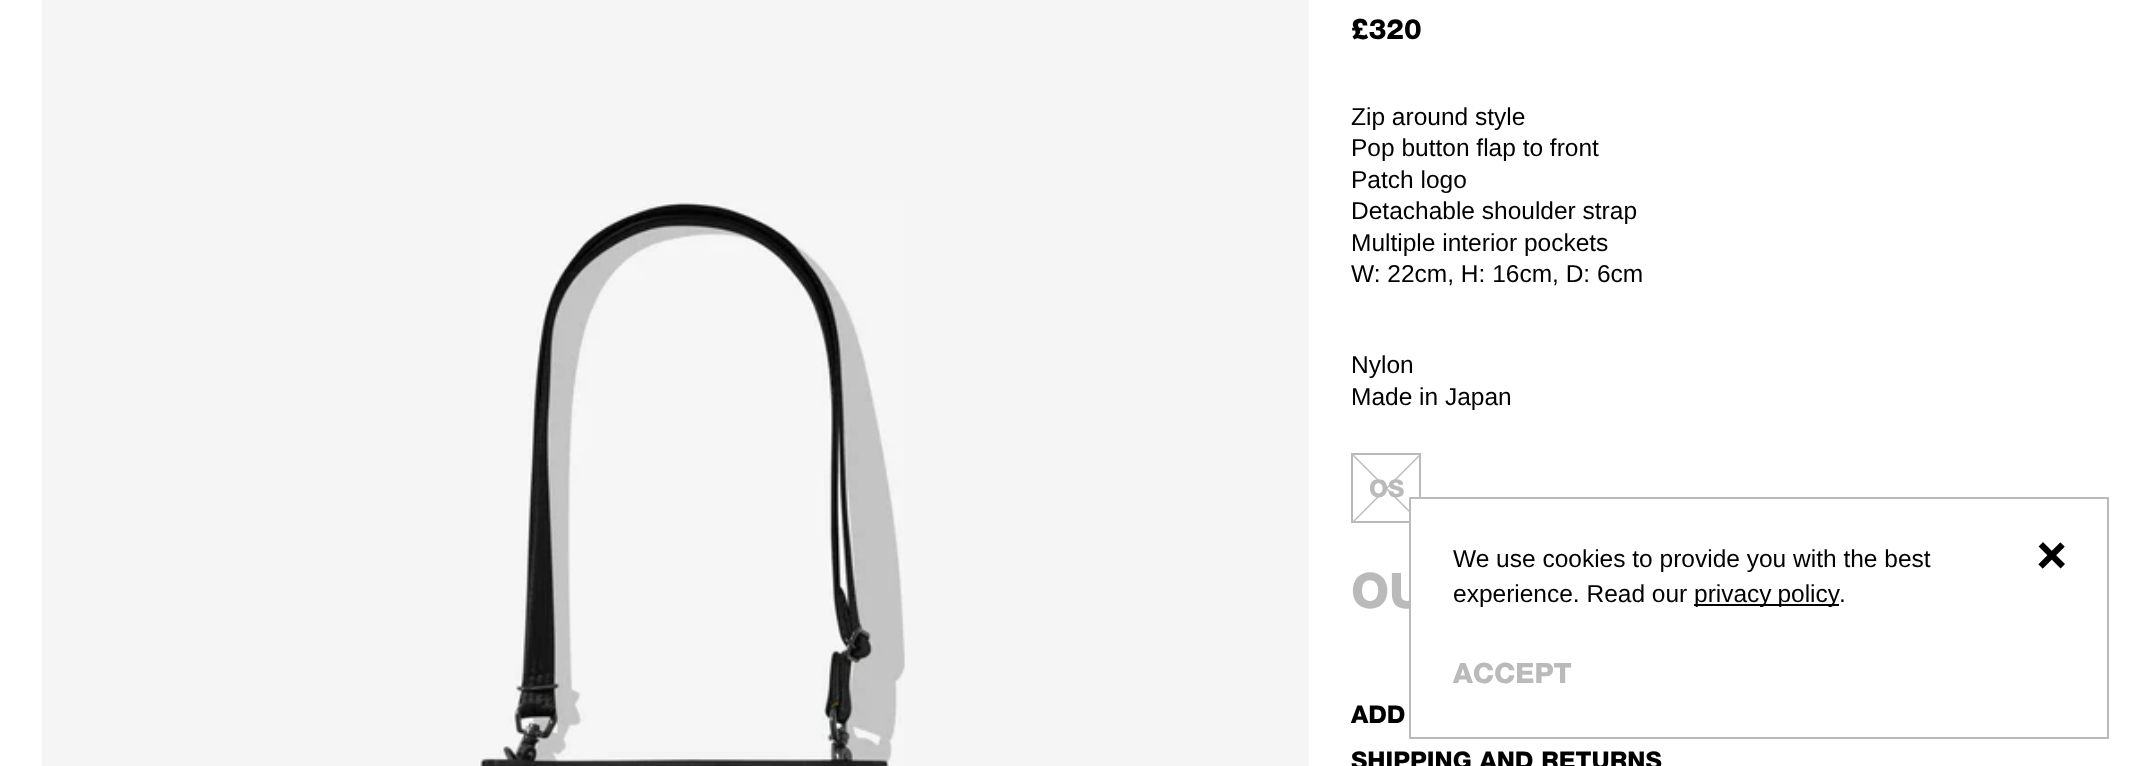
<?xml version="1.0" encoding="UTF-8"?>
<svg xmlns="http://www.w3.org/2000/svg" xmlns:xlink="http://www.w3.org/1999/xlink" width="2136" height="766">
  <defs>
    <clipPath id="clip1"><rect x="1351" y="453" width="70" height="70" /></clipPath>
  </defs>
  <rect width="100%" height="100%" fill="#ffffff" />
  <rect x="42" width="1267" height="766" fill="#f5f5f5" />
  <image x="479" y="201" width="426" height="565" xlink:href="image1.png" />
  <rect x="1352" y="454" width="68" height="68" fill="none" stroke="#bababa" stroke-width="2" />
  <g clip-path="url(#clip1)">
    <path d="M 1351 453 l 70.5 70.5 m 0 -70 l -70 70" fill="none" stroke="#bababa" stroke-width="1.4" />
  </g>
  <text x="1351" y="39" style="font-family: 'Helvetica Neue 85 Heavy'; font-size: 28px; font-weight: 900; fill: #000000">£320</text>
  <text x="1351" y="125" style="font-family: Liberation Sans; font-size: 24.5px; fill: #000000">Zip around style</text>
  <text x="1351" y="156" style="font-family: Liberation Sans; font-size: 24.5px; fill: #000000">Pop button flap to front</text>
  <text x="1351" y="188" style="font-family: Liberation Sans; font-size: 24.5px; fill: #000000">Patch logo</text>
  <text x="1351" y="219" style="font-family: Liberation Sans; font-size: 24.5px; fill: #000000">Detachable shoulder strap</text>
  <text x="1351" y="251" style="font-family: Liberation Sans; font-size: 24.5px; fill: #000000">Multiple interior pockets</text>
  <text x="1351" y="282" style="font-family: Liberation Sans; font-size: 24.5px; fill: #000000">W: 22cm, H: 16cm, D: 6cm</text>
  <text x="1351" y="373" style="font-family: Liberation Sans; font-size: 24.5px; fill: #000000">Nylon</text>
  <text x="1351" y="405" style="font-family: Liberation Sans; font-size: 24.5px; fill: #000000">Made in Japan</text>
  <text x="1369" y="497" style="font-family: 'Helvetica Neue 85 Heavy'; font-size: 24.5px; font-weight: 900; fill: #bababa">OS</text>
  <text x="1351" y="608" style="font-family: 'Helvetica Neue 85 Heavy'; font-size: 49px; font-weight: 900; fill: #bababa">OU</text>
  <text x="1351" y="723" style="font-family: 'Helvetica Neue 85 Heavy'; font-size: 24.5px; font-weight: 900; fill: #000000">ADD</text>
  <text x="1351" y="769" style="font-family: 'Helvetica Neue 85 Heavy'; font-size: 24.5px; font-weight: 900; fill: #000000">SHIPPING AND RETURNS</text>
  <rect x="1411" y="499" width="12" height="110" fill="#ffffff" />
  <rect x="1410" y="498" width="698" height="240" fill="none" stroke="#bababa" stroke-width="2" />
  <text x="1453" y="567" style="font-family: Liberation Sans; font-size: 24.5px; fill: #000000">We use cookies to provide you with the best</text>
  <text x="1453" y="602" style="font-family: Liberation Sans; font-size: 24.5px; fill: #000000">experience. Read our</text>
  <rect x="1694" y="604" width="145" height="2" fill="#000000" />
  <text x="1694" y="602" word-spacing="-1" style="font-family: Liberation Sans; font-size: 24.5px; fill: #000000">privacy policy</text>
  <text x="1839" y="602" style="font-family: Liberation Sans; font-size: 24.5px; fill: #000000">.</text>
  <image x="2038" y="542" width="27" height="27" xlink:href="image2.png" />
  <text x="1453" y="683" style="font-family: 'Helvetica Neue 85 Heavy'; font-size: 28px; font-weight: 900; fill: #bababa">ACCEPT</text>
</svg>
